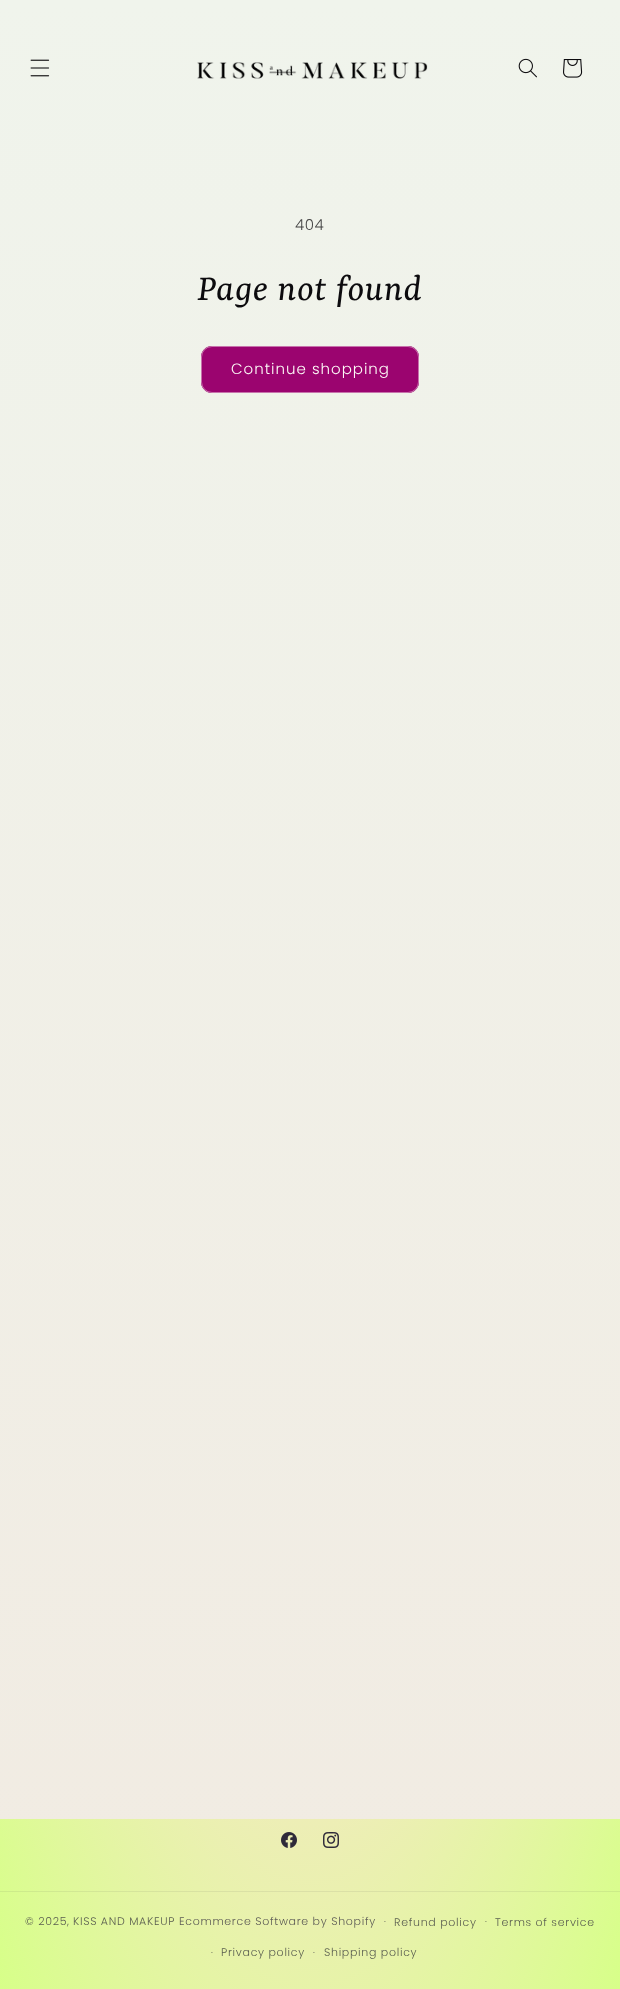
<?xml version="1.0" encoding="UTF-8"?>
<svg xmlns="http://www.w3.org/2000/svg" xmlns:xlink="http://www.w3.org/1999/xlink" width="620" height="1989">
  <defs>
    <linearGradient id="g1" gradientUnits="userSpaceOnUse" x1="310" y1="0" x2="310" y2="1989"><stop offset="0" stop-color="#f0f4ec" /><stop offset="1" stop-color="#f1ebe2" /></linearGradient>
    <radialGradient id="g2" gradientUnits="userSpaceOnUse" cx="0" cy="0" r="1" gradientTransform="matrix(438 0 0 1406 310 995)"><stop offset="0" stop-color="#ffe5e5" /><stop offset="0.25" stop-color="#ffe0da" /><stop offset="1" stop-color="#d7ff89" /></radialGradient>
    <radialGradient id="g3" gradientUnits="userSpaceOnUse" cx="0" cy="0" r="1" gradientTransform="matrix(438 0 0 1406 310 995)"><stop offset="0" stop-color="#eed6d7" /><stop offset="0.25" stop-color="#eed1cd" /><stop offset="1" stop-color="#c9ee83" /></radialGradient>
  </defs>
  <rect width="100%" height="100%" fill="#ffffff" />
  <rect width="620" height="1819" fill="url(#g1)" />
  <image x="30" y="59" width="20" height="18" xlink:href="image1.png" />
  <image x="197" y="62" width="231" height="17" xlink:href="image2.png" />
  <image x="518" y="58" width="19" height="20" xlink:href="image3.png" />
  <image x="563" y="59" width="20" height="19" xlink:href="image4.png" />
  <rect x="201" y="346" width="218" height="47" rx="11" fill="#9b046f" />
  <rect x="201.5" y="346.5" width="217" height="46" rx="10.5" fill="none" stroke="#9b046f" />
  <rect x="201.5" y="346.5" width="217" height="46" rx="10.5" fill="none" stroke="#fdfbf7" stroke-opacity="0.45" />
  <rect y="1819" width="620" height="170" fill="url(#g2)" />
  <rect y="1891" width="620" height="1" fill="url(#g3)" />
  <image x="281" y="1832" width="16" height="16" xlink:href="image5.png" />
  <image x="323" y="1832" width="16" height="16" xlink:href="image6.png" />
  <text x="295" y="230" style="font-family: Poppins; font-size: 15px; font-weight: 300; letter-spacing: 0.5px; fill: #454545">404</text>
  <text x="197" y="300" style="font-family: Rasa; font-size: 39px; font-style: italic; letter-spacing: 0.75px; fill: #0c0b0e">Page not found</text>
  <text x="231" y="374" style="font-family: Poppins; font-size: 15px; font-weight: 300; letter-spacing: 1px; fill: #fdfbf7">Continue shopping</text>
  <text x="25" y="1925" style="font-family: Poppins; font-size: 11px; font-weight: 300; letter-spacing: 0.7px; fill: #5a5e50">© 2025,</text>
  <text x="73" y="1925" style="font-family: Poppins; font-size: 11px; font-weight: 300; letter-spacing: 0.7px; fill: #5a5e50">KISS AND MAKEUP</text>
  <text x="179" y="1925" style="font-family: Poppins; font-size: 11px; font-weight: 300; letter-spacing: 0.7px; fill: #5d5c56">Ecommerce Software by Shopify</text>
  <text x="384" y="1925" style="font-family: Poppins; font-size: 10px; font-weight: 300; letter-spacing: 0.7px; fill: #5d5c56">·</text>
  <text x="394" y="1926" style="font-family: Poppins; font-size: 11px; font-weight: 300; letter-spacing: 0.7px; fill: #5a5e50">Refund policy</text>
  <text x="485" y="1925" style="font-family: Poppins; font-size: 10px; font-weight: 300; letter-spacing: 0.7px; fill: #5a5e50">·</text>
  <text x="495" y="1926" style="font-family: Poppins; font-size: 11px; font-weight: 300; letter-spacing: 0.7px; fill: #5a5e50">Terms of service</text>
  <text x="211" y="1956" style="font-family: Poppins; font-size: 10px; font-weight: 300; letter-spacing: 0.7px; fill: #5a5e50">·</text>
  <text x="221" y="1956" style="font-family: Poppins; font-size: 11px; font-weight: 300; letter-spacing: 0.7px; fill: #5a5e50">Privacy policy</text>
  <text x="313" y="1956" style="font-family: Poppins; font-size: 10px; font-weight: 300; letter-spacing: 0.7px; fill: #5d5c56">·</text>
  <text x="324" y="1956" style="font-family: Poppins; font-size: 11px; font-weight: 300; letter-spacing: 0.7px; fill: #5a5e50">Shipping policy</text>
</svg>
